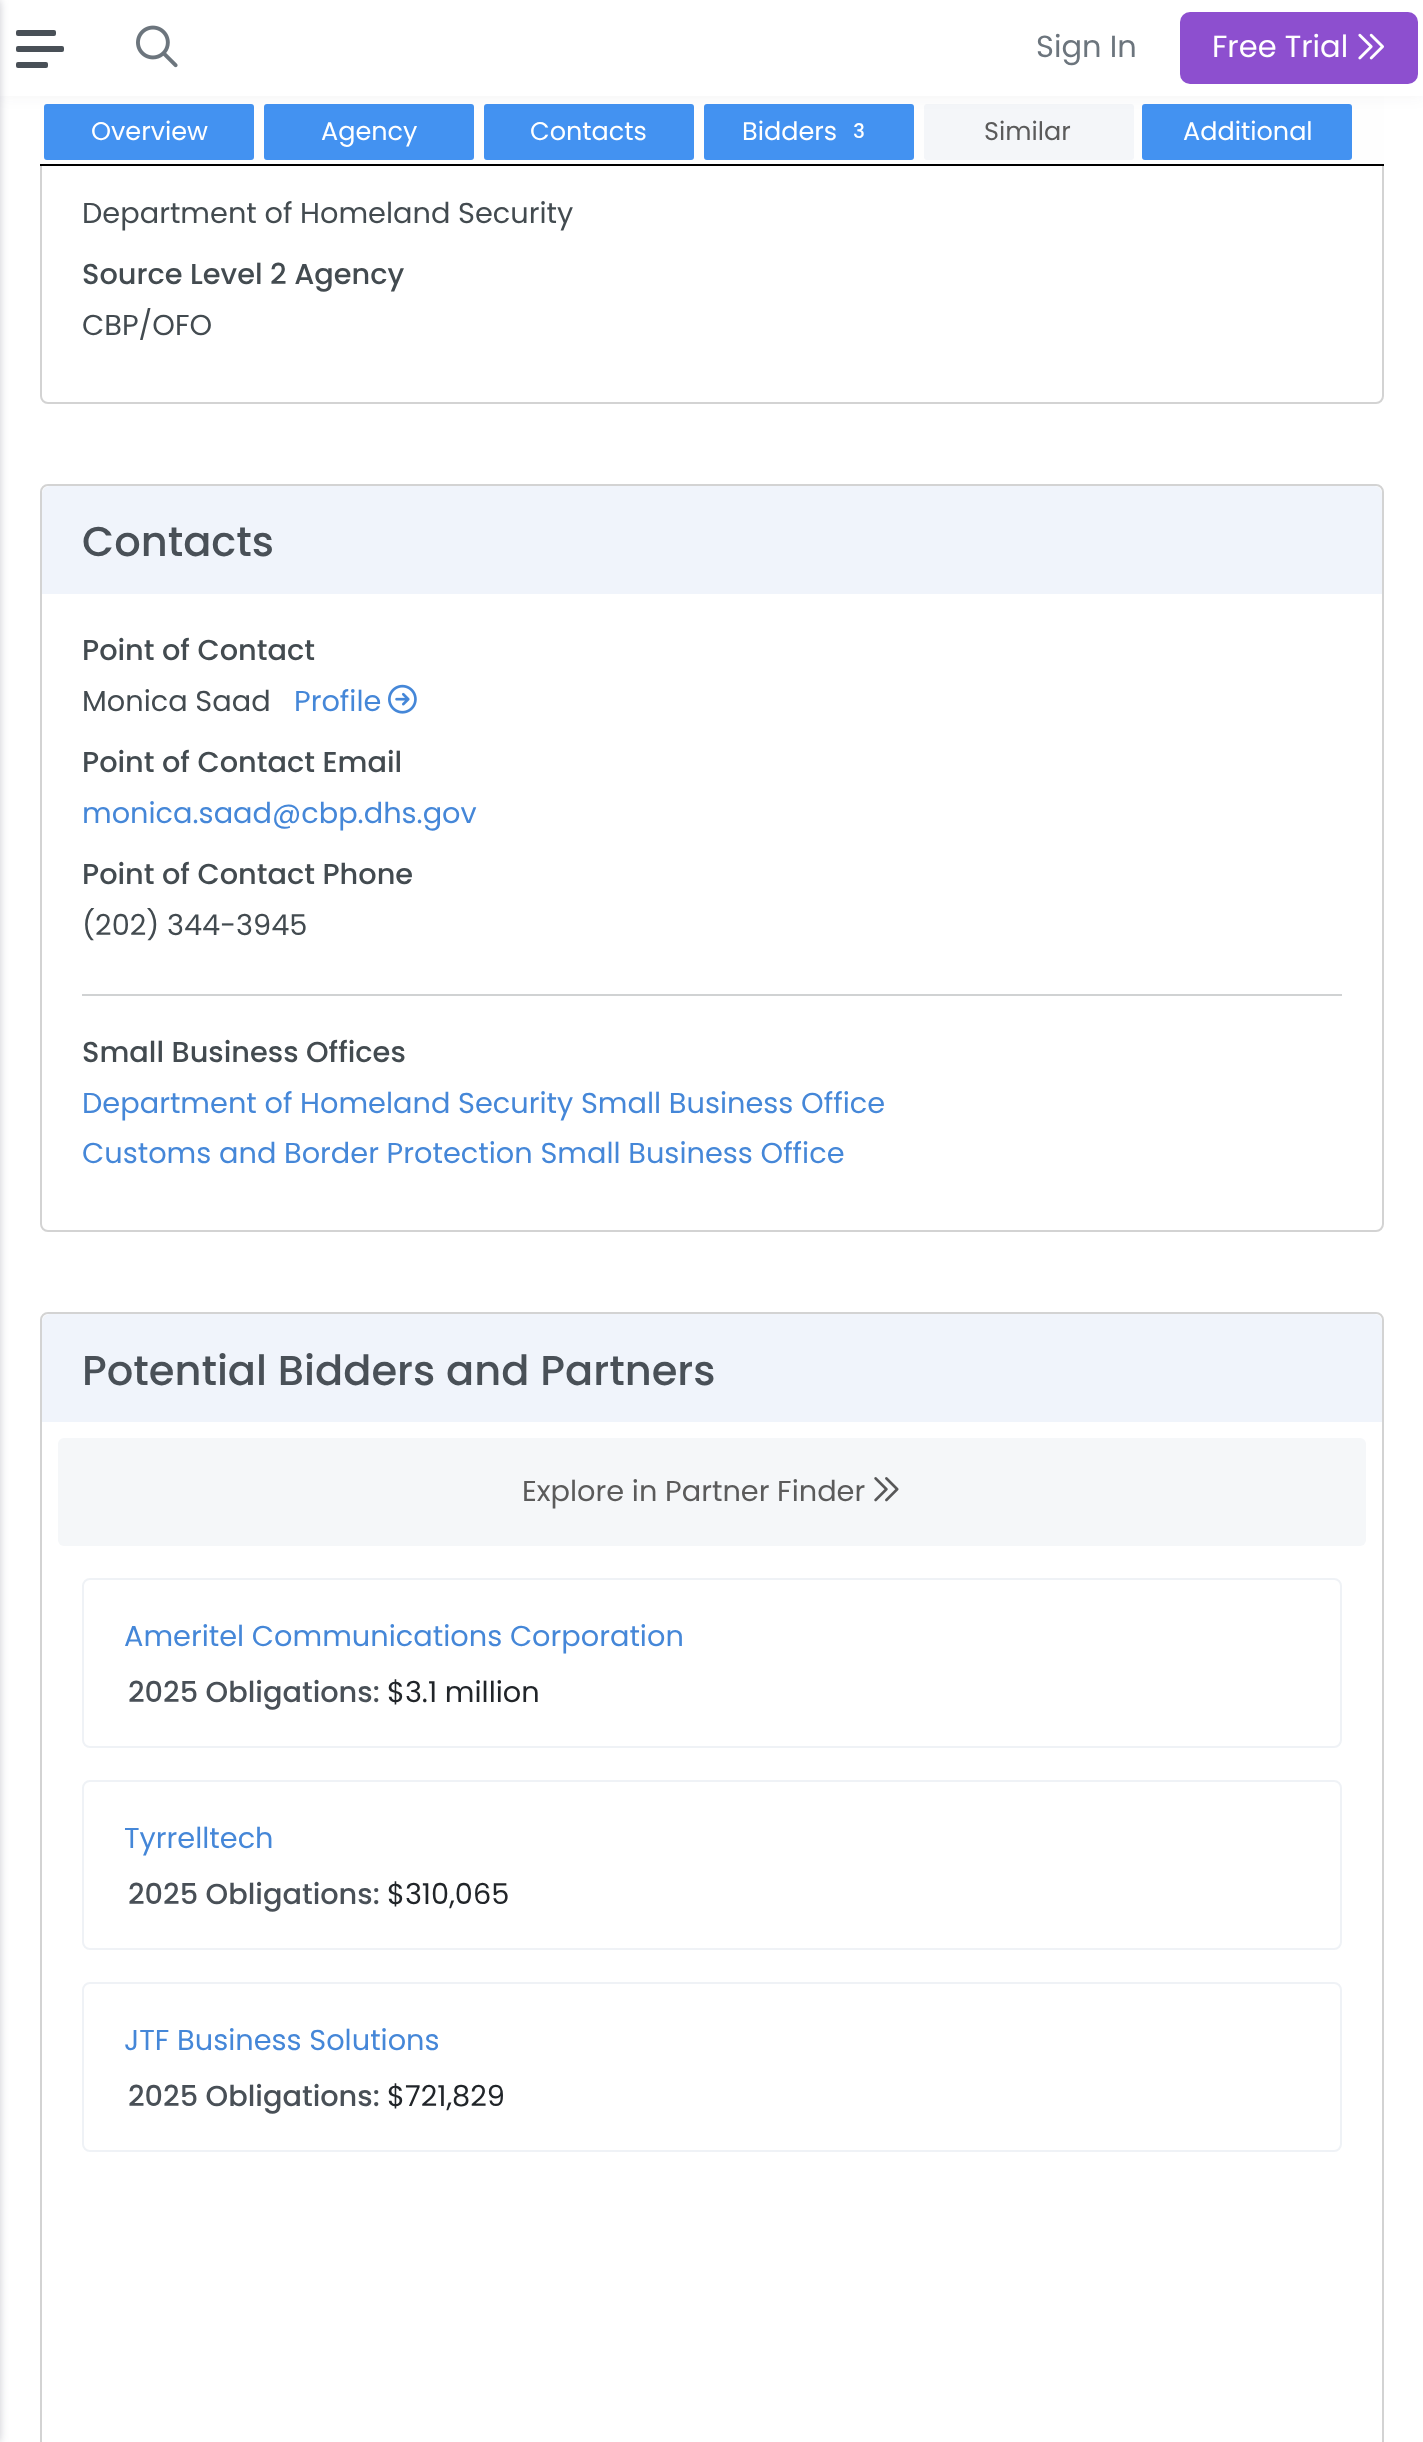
<?xml version="1.0" encoding="UTF-8"?>
<svg xmlns="http://www.w3.org/2000/svg" xmlns:xlink="http://www.w3.org/1999/xlink" width="1423" height="2442">
  <rect width="100%" height="100%" fill="#ffffff" />
  <rect x="41" y="-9" width="1342" height="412" rx="7" fill="none" stroke="#d3d3d3" stroke-width="2" />
  <rect x="40" y="96" width="1344" height="68" fill="#fefefe" />
  <rect x="45" y="105" width="208" height="54" rx="2" fill="#4392f1" stroke="#4392f1" stroke-width="2" />
  <rect x="265" y="105" width="208" height="54" rx="2" fill="#4392f1" stroke="#4392f1" stroke-width="2" />
  <rect x="485" y="105" width="208" height="54" rx="2" fill="#4392f1" stroke="#4392f1" stroke-width="2" />
  <rect x="705" y="105" width="208" height="54" rx="2" fill="#4392f1" stroke="#4392f1" stroke-width="2" />
  <rect x="924" y="104" width="210" height="56" rx="3" fill="#f4f6f9" />
  <rect x="1143" y="105" width="208" height="54" rx="2" fill="#4392f1" stroke="#4392f1" stroke-width="2" />
  <rect width="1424" height="96" fill="#293042" fill-opacity="0.05" filter="blur(8px)" />
  <rect width="1423" height="96" fill="#ffffff" />
  <rect x="-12" width="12" height="2442" fill="#293042" fill-opacity="0.25" filter="blur(4px)" />
  <rect x="16" y="46" width="48" height="6" rx="2" fill="#495057" />
  <rect x="16" y="30" width="40" height="6" rx="2" fill="#495057" />
  <rect x="16" y="62" width="32" height="6" rx="2" fill="#495057" />
  <image x="136" y="25" width="42" height="43" xlink:href="image1.png" />
  <rect x="1180" y="12" width="238" height="72" rx="10" fill="#8d4fcf" />
  <image x="1358" y="33" width="26" height="27" xlink:href="image2.png" />
  <rect x="40" y="164" width="1344" height="2" fill="#000000" />
  <rect x="41" y="485" width="1342" height="746" rx="7" fill="none" stroke="#d3d3d3" stroke-width="2" />
  <path d="M 50 486 h 1324 c 4.5 0 8 3.5 8 8 v 100 h -1340 v -100 c 0 -4.5 3.5 -8 8 -8 z" fill="#f0f4fb" />
  <image x="388" y="684" width="29" height="30" xlink:href="image3.png" />
  <rect x="82" y="994" width="1260" height="2" fill="#d0d2d3" />
  <rect x="41" y="1313" width="1342" height="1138" rx="7" fill="none" stroke="#d3d3d3" stroke-width="2" />
  <path d="M 50 1314 h 1324 c 4.5 0 8 3.5 8 8 v 100 h -1340 v -100 c 0 -4.5 3.5 -8 8 -8 z" fill="#f0f4fb" />
  <rect x="58" y="1438" width="1308" height="108" rx="6" fill="#f5f7f9" />
  <image x="874" y="1477" width="25" height="25" xlink:href="image4.png" />
  <rect x="83" y="1579" width="1258" height="168" rx="7" fill="none" stroke="#eff2f6" stroke-width="2" />
  <rect x="83" y="1781" width="1258" height="168" rx="7" fill="none" stroke="#eff2f6" stroke-width="2" />
  <rect x="83" y="1983" width="1258" height="168" rx="7" fill="none" stroke="#eff2f6" stroke-width="2" />
  <text x="1036" y="57" style="font-family: Poppins; font-size: 30.5px; fill: #6c757d">Sign In</text>
  <text x="1212" y="57" style="font-family: Poppins; font-size: 30.5px; fill: #ffffff">Free Trial</text>
  <text x="91" y="140" style="font-family: Poppins; font-size: 25.5px; fill: #ffffff">Overview</text>
  <text x="321" y="140" style="font-family: Poppins; font-size: 25.5px; fill: #ffffff">Agency</text>
  <text x="530" y="140" style="font-family: Poppins; font-size: 25.5px; fill: #ffffff">Contacts</text>
  <text x="742" y="140" style="font-family: Poppins; font-size: 25.5px; fill: #ffffff">Bidders</text>
  <text x="853" y="138" style="font-family: Poppins; font-size: 20px; font-weight: 500; fill: #ffffff">3</text>
  <text x="984" y="140" style="font-family: Poppins; font-size: 25.5px; fill: #5b5b5b">Similar</text>
  <text x="1183" y="140" style="font-family: Poppins; font-size: 25.5px; fill: #ffffff">Additional</text>
  <text x="82" y="223" style="font-family: Poppins; font-size: 28.8px; fill: #434b50">Department of Homeland Security</text>
  <text x="82" y="284" style="font-family: Poppins; font-size: 28.8px; font-weight: 500; fill: #434b50">Source Level 2 Agency</text>
  <text x="82" y="335" style="font-family: Poppins; font-size: 28.8px; fill: #434b50">CBP/OFO</text>
  <text x="82" y="556" style="font-family: Poppins; font-size: 41.6px; font-weight: 500; fill: #495057">Contacts</text>
  <text x="82" y="660" style="font-family: Poppins; font-size: 28.8px; font-weight: 500; fill: #434b50">Point of Contact</text>
  <text x="82" y="711" style="font-family: Poppins; font-size: 28.8px; fill: #434b50">Monica Saad</text>
  <text x="294" y="711" style="font-family: Poppins; font-size: 28.8px; fill: #4587d8">Profile</text>
  <text x="82" y="772" style="font-family: Poppins; font-size: 28.8px; font-weight: 500; fill: #434b50">Point of Contact Email</text>
  <text x="82" y="823" style="font-family: Poppins; font-size: 28.8px; fill: #4587d8">monica.saad@cbp.dhs.gov</text>
  <text x="82" y="884" style="font-family: Poppins; font-size: 28.8px; font-weight: 500; fill: #434b50">Point of Contact Phone</text>
  <text x="82" y="935" style="font-family: Poppins; font-size: 28.8px; fill: #434b50">(202) 344-3945</text>
  <text x="82" y="1062" style="font-family: Poppins; font-size: 28.8px; font-weight: 500; fill: #434b50">Small Business Offices</text>
  <text x="82" y="1113" style="font-family: Poppins; font-size: 28.8px; fill: #4587d8">Department of Homeland Security Small Business Office</text>
  <text x="82" y="1163" style="font-family: Poppins; font-size: 28.8px; fill: #4587d8">Customs and Border Protection Small Business Office</text>
  <text x="82" y="1385" style="font-family: Poppins; font-size: 41.6px; font-weight: 500; fill: #495057">Potential Bidders and Partners</text>
  <text x="522" y="1501" style="font-family: Poppins; font-size: 28.8px; fill: #5b5b5b">Explore in Partner Finder</text>
  <text x="124" y="1646" style="font-family: Poppins; font-size: 28.8px; fill: #4587d8">Ameritel Communications Corporation</text>
  <text x="128" y="1702" style="font-family: Poppins; font-size: 28.8px; font-weight: 500; fill: #495057">2025 Obligations:</text>
  <text x="387" y="1702" style="font-family: Poppins; font-size: 28.8px; fill: #212529">$3.1 million</text>
  <text x="124" y="1848" style="font-family: Poppins; font-size: 28.8px; fill: #4587d8">Tyrrelltech</text>
  <text x="128" y="1904" style="font-family: Poppins; font-size: 28.8px; font-weight: 500; fill: #495057">2025 Obligations:</text>
  <text x="387" y="1904" style="font-family: Poppins; font-size: 28.8px; fill: #212529">$310,065</text>
  <text x="124" y="2050" style="font-family: Poppins; font-size: 28.8px; fill: #4587d8">JTF Business Solutions</text>
  <text x="128" y="2106" style="font-family: Poppins; font-size: 28.8px; font-weight: 500; fill: #495057">2025 Obligations:</text>
  <text x="387" y="2106" style="font-family: Poppins; font-size: 28.8px; fill: #212529">$721,829</text>
</svg>
